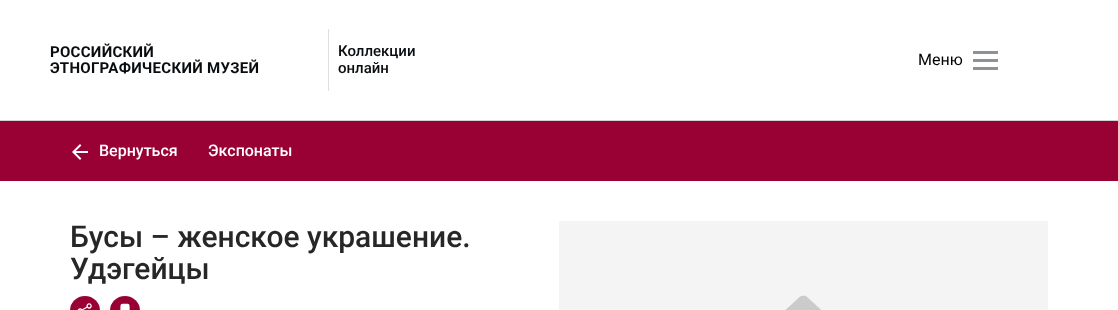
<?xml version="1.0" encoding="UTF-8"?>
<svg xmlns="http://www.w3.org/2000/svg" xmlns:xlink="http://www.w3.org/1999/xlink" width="1118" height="310">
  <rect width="100%" height="100%" fill="#ffffff" />
  <rect y="120" width="1118" height="1" fill="#d3d3d3" />
  <rect x="328" y="29" width="1" height="62" fill="#dedede" />
  <rect x="973" y="51" width="25" height="3" fill="#8e9195" />
  <rect x="973" y="59" width="25" height="3" fill="#8e9195" />
  <rect x="973" y="67" width="25" height="3" fill="#8e9195" />
  <rect y="121" width="1118" height="60" fill="#990033" />
  <image x="72" y="144" width="16" height="16" xlink:href="image1.png" />
  <rect x="70" y="296" width="30" height="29" rx="15" fill="#990033" />
  <image x="77" y="303" width="15" height="7" xlink:href="image2.png" />
  <rect x="110" y="296" width="30" height="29" rx="15" fill="#990033" />
  <image x="120" y="303" width="10" height="7" xlink:href="image3.png" />
  <rect x="559" y="221" width="489" height="89" fill="#f4f4f4" />
  <image x="785" y="295" width="36" height="15" xlink:href="image4.png" />
  <text x="50" y="57" style="font-family: Roboto; font-size: 15px; font-weight: bold; letter-spacing: 0.3px; fill: #0a0d10">РОССИЙСКИЙ</text>
  <text x="50" y="73" style="font-family: Roboto; font-size: 15px; font-weight: bold; letter-spacing: 0.3px; fill: #0a0d10">ЭТНОГРАФИЧЕСКИЙ МУЗЕЙ</text>
  <text x="338" y="56" style="font-family: Roboto; font-size: 15px; font-weight: 500; fill: #0a0d10">Коллекции</text>
  <text x="338" y="73" style="font-family: Roboto; font-size: 15px; font-weight: 500; fill: #0a0d10">онлайн</text>
  <text x="918" y="65" style="font-family: Roboto; font-size: 16px; fill: #000000">Меню</text>
  <text x="99" y="156" style="font-family: Roboto; font-size: 16px; font-weight: 500; fill: #ffffff">Вернуться</text>
  <text x="208" y="156" style="font-family: Roboto; font-size: 16px; font-weight: 500; fill: #ffffff">Экспонаты</text>
  <text x="70" y="247" style="font-family: Roboto; font-size: 30px; font-weight: 500; fill: #272727">Бусы – женское украшение.</text>
  <text x="70" y="279" style="font-family: Roboto; font-size: 30px; font-weight: 500; fill: #272727">Удэгейцы</text>
</svg>
